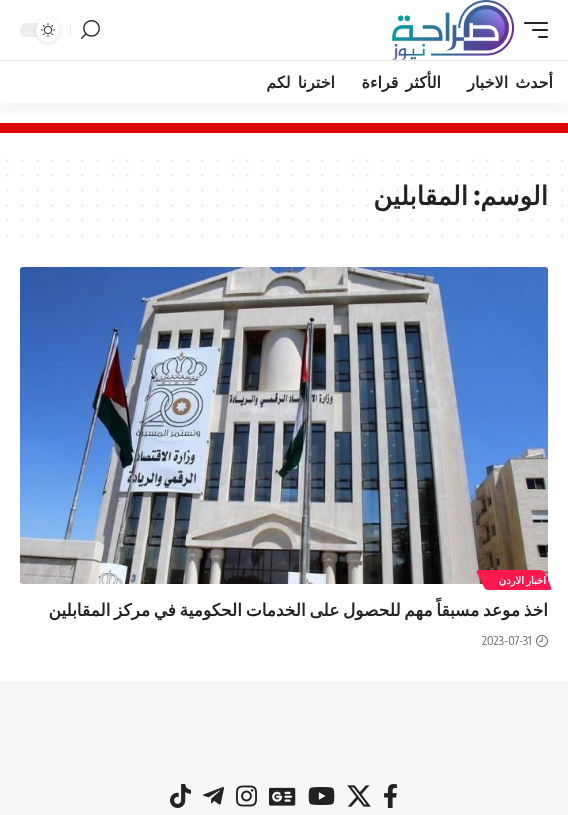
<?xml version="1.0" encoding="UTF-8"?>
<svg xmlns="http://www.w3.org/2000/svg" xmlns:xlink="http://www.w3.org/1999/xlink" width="568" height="815">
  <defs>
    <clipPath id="clip1"><rect x="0" y="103" width="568" height="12" /></clipPath>
  </defs>
  <rect width="100%" height="100%" fill="#ffffff" />
  <rect y="123" width="568" height="10" fill="#df0808" />
  <g clip-path="url(#clip1)">
    <rect y="4" width="568" height="103" fill="#000000" fill-opacity="0.07" filter="blur(15px)" />
  </g>
  <rect x="524" y="22" width="24" height="2" rx="1" fill="#222222" />
  <rect x="532" y="29" width="16" height="2" rx="1" fill="#222222" />
  <rect x="538" y="36" width="10" height="2" rx="1" fill="#222222" />
  <image x="392" y="0" width="122" height="60" xlink:href="image1.png" />
  <image x="81" y="20" width="19" height="19" xlink:href="image2.png" />
  <rect x="70" y="23" width="1" height="14" fill="#eaeaea" />
  <rect x="20" y="23" width="40" height="14" rx="7" fill="#ededed" />
  <rect x="36" y="19" width="24" height="24" rx="12" fill="#000000" fill-opacity="0.12" filter="blur(2px)" />
  <circle cx="48" cy="30" r="12" fill="#ffffff" />
  <image x="41" y="23" width="14" height="14" xlink:href="image3.png" />
  <rect y="60" width="568" height="1" fill="#eaeaea" />
  <path d="M 7.5 160.5 h 555.2" fill="none" stroke="#dedede" stroke-width="2" stroke-linecap="round" stroke-dasharray="0 15" />
  <path d="M 7.5 175.5 h 555.2" fill="none" stroke="#dedede" stroke-width="2" stroke-linecap="round" stroke-dasharray="0 15" />
  <path d="M 7.5 220.5 h 555.2" fill="none" stroke="#dedede" stroke-width="2" stroke-linecap="round" stroke-dasharray="0 15" />
  <path d="M 7.5 235.5 h 555.2" fill="none" stroke="#dedede" stroke-width="2" stroke-linecap="round" stroke-dasharray="0 15" />
  <image x="20" y="267" width="528" height="317" xlink:href="image4.png" />
  <path d="M 479 570 h 61 c 2 0 4 1 5 3 l 6 14 c 1 1 0 3 -1 3 h -62 c -2 0 -4 -2 -4 -3 l -7 -14 c -1 -2 0 -3 2 -3 z" fill="#ff184e" />
  <image x="536" y="635" width="12" height="12" xlink:href="image5.png" />
  <rect y="681" width="568" height="134" fill="#f7f7f7" />
  <image x="384" y="784" width="13" height="24" xlink:href="image6.png" />
  <image x="347" y="785" width="24" height="22" xlink:href="image7.png" />
  <image x="308" y="787" width="27" height="18" xlink:href="image8.png" />
  <image x="269" y="787" width="27" height="19" xlink:href="image9.png" />
  <image x="236" y="785" width="21" height="22" xlink:href="image10.png" />
  <image x="203" y="787" width="21" height="18" xlink:href="image11.png" />
  <image x="170" y="784" width="21" height="24" xlink:href="image12.png" />
  <text x="553" y="88" word-spacing="2" style="font-family: DejaVu Sans; font-size: 16px; font-weight: bold; letter-spacing: -0.25px; direction: rtl; fill: #222222">أحدث الاخبار</text>
  <text x="441" y="88" word-spacing="2" style="font-family: DejaVu Sans; font-size: 16px; font-weight: bold; letter-spacing: -0.25px; direction: rtl; fill: #222222">الأكثر قراءة</text>
  <text x="335" y="88" word-spacing="2" style="font-family: DejaVu Sans; font-size: 16px; font-weight: bold; letter-spacing: -0.25px; direction: rtl; fill: #222222">اخترنا لكم</text>
  <text x="548" y="205" style="font-family: DejaVu Sans; font-size: 26px; font-weight: bold; direction: rtl; fill: #222222">الوسم</text>
  <text x="480" y="205" style="font-family: Encode Sans Condensed; font-size: 26px; font-weight: bold; direction: rtl; fill: #222222">:</text>
  <text x="468" y="205" style="font-family: DejaVu Sans; font-size: 26px; font-weight: bold; direction: rtl; fill: #222222">المقابلين</text>
  <path d="M 7.5 205.5 h 555.2" fill="none" stroke="#222222" stroke-opacity="0.15" stroke-width="2" stroke-linecap="round" stroke-dasharray="0 15" />
  <path d="M 7.5 190.5 h 555.2" fill="none" stroke="#222222" stroke-opacity="0.15" stroke-width="2" stroke-linecap="round" stroke-dasharray="0 15" />
  <text x="546" y="584" word-spacing="-1" style="font-family: DejaVu Sans; font-size: 10px; font-weight: bold; letter-spacing: 0.75px; direction: rtl; fill: #ffffff">اخبار الاردن</text>
  <text x="548" y="616" style="font-family: DejaVu Sans; font-size: 17px; font-weight: bold; direction: rtl; fill: #222222">اخذ</text>
  <text x="520" y="616" word-spacing="-1.75" style="font-family: DejaVu Sans; font-size: 17px; font-weight: bold; direction: rtl; fill: #222222">موعد مسبقاً مهم للحصول على الخدمات الحكومية في مركز المقابلين</text>
  <text x="482" y="645" style="font-family: Encode Sans Condensed; font-size: 12px; fill: #666666">2023-07-31</text>
</svg>
